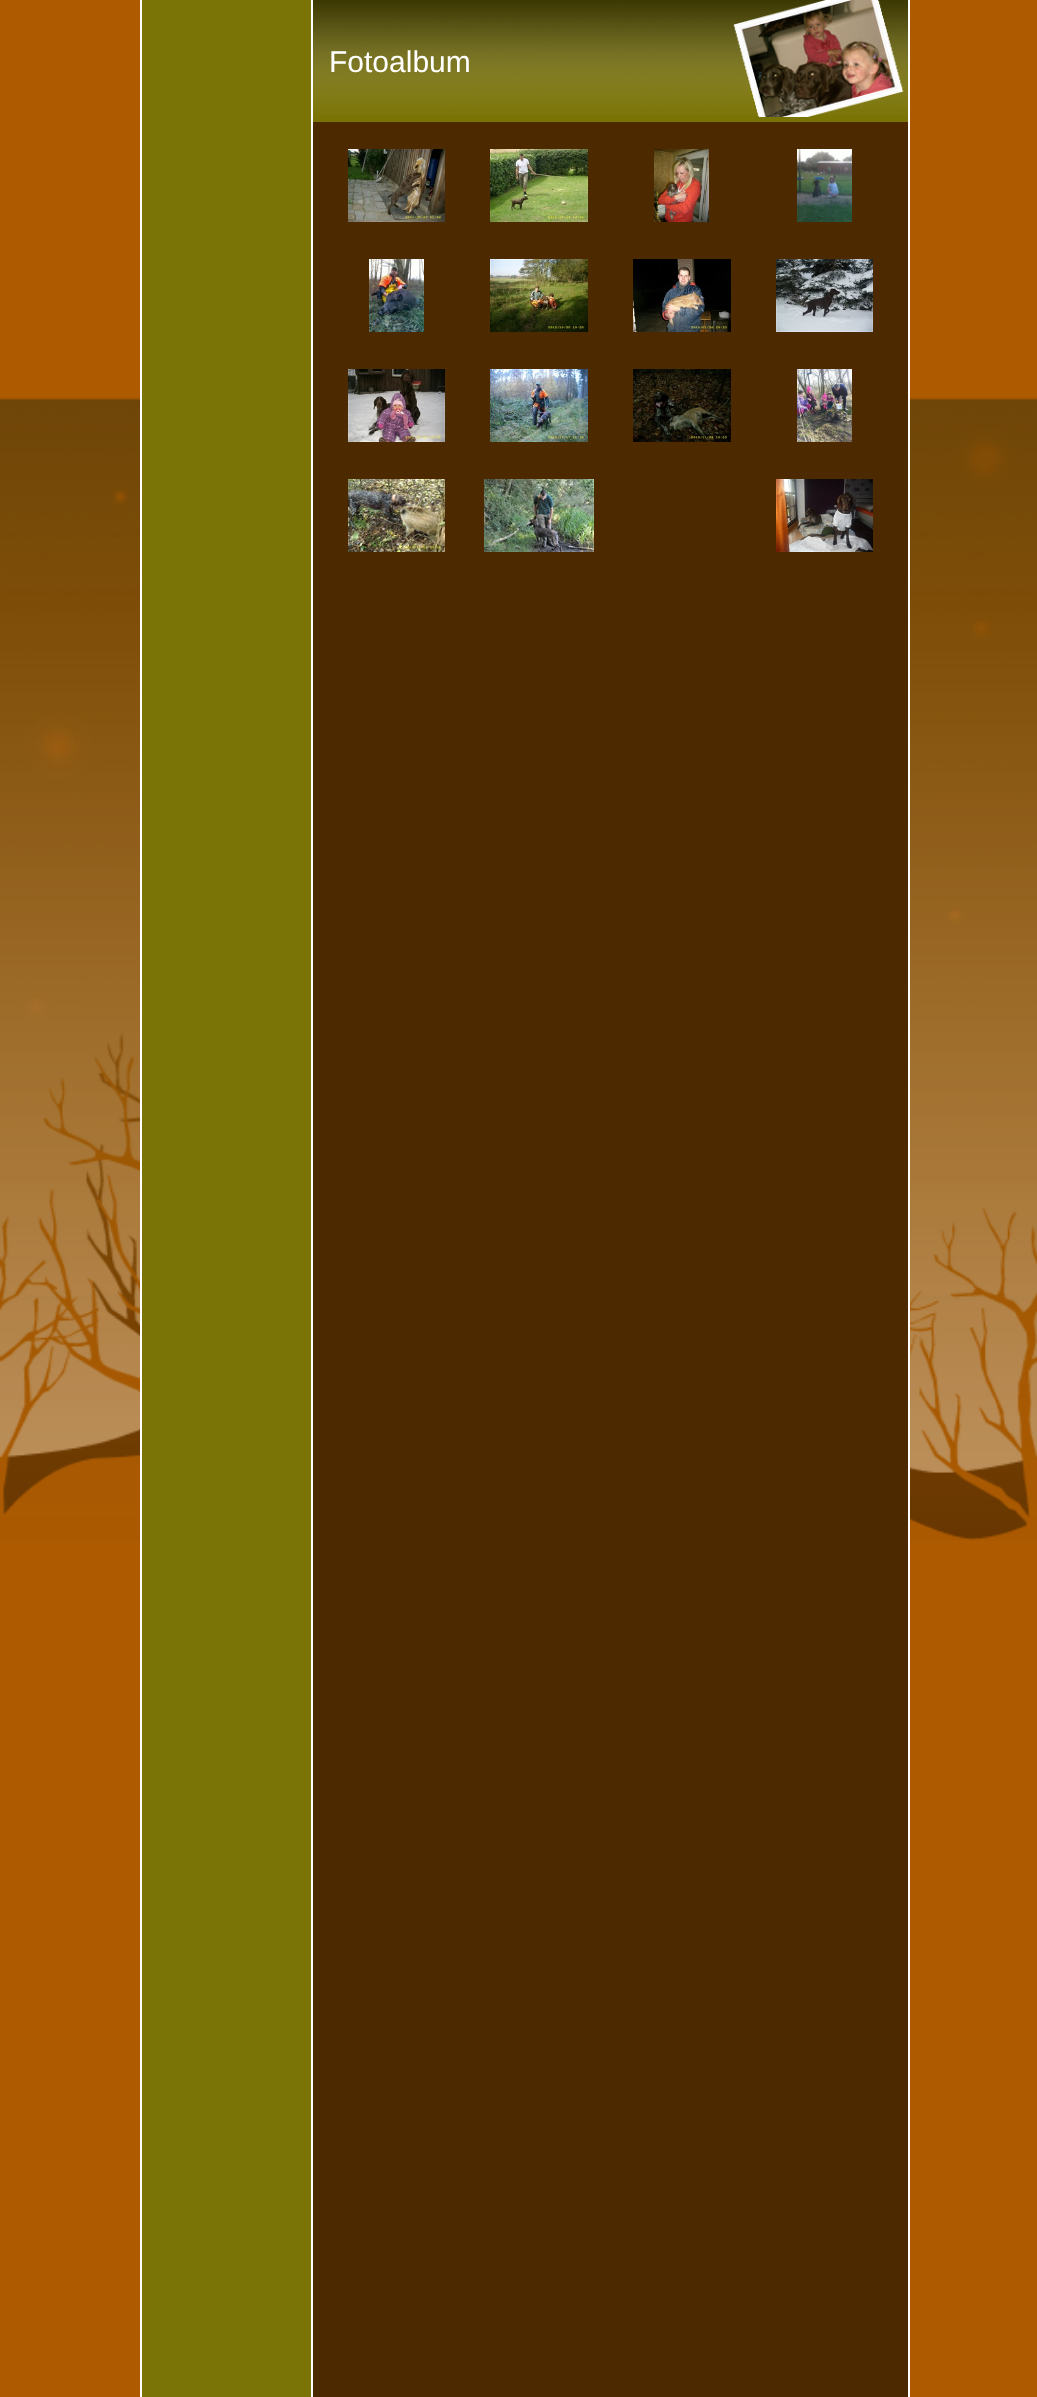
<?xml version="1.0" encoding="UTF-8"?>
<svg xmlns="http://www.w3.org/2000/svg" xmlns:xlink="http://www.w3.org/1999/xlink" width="1037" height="2397">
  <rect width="100%" height="100%" fill="#ad5a00" />
  <image x="0" y="397" width="1037" height="1144" xlink:href="image18.png" />
  <rect x="140" width="770" height="2397" fill="#ffffff" />
  <rect x="142" width="169" height="2397" fill="#7a7306" />
  <rect x="313" y="122" width="595" height="2275" fill="#4d2900" />
  <rect x="313" width="595" height="122" fill="#7a7306" />
  <image x="313" y="0" width="595" height="115" xlink:href="image1.png" />
  <image x="733" y="0" width="171" height="117" xlink:href="image2.png" />
  <image x="348" y="149" width="97" height="73" xlink:href="image3.png" />
  <image x="490" y="149" width="98" height="73" xlink:href="image4.png" />
  <image x="654" y="149" width="55" height="73" xlink:href="image5.png" />
  <image x="797" y="149" width="55" height="73" xlink:href="image6.png" />
  <image x="369" y="259" width="55" height="73" xlink:href="image7.png" />
  <image x="490" y="259" width="98" height="73" xlink:href="image8.png" />
  <image x="633" y="259" width="98" height="73" xlink:href="image9.png" />
  <image x="776" y="259" width="97" height="73" xlink:href="image10.png" />
  <image x="348" y="369" width="97" height="73" xlink:href="image11.png" />
  <image x="490" y="369" width="98" height="73" xlink:href="image12.png" />
  <image x="633" y="369" width="98" height="73" xlink:href="image13.png" />
  <image x="797" y="369" width="55" height="73" xlink:href="image14.png" />
  <image x="348" y="479" width="97" height="73" xlink:href="image15.png" />
  <image x="484" y="479" width="110" height="73" xlink:href="image16.png" />
  <image x="776" y="479" width="97" height="73" xlink:href="image17.png" />
  <text x="329" y="72" style="font-family: Liberation Sans; font-size: 30px; fill: #ffffff">Fotoalbum</text>
</svg>
